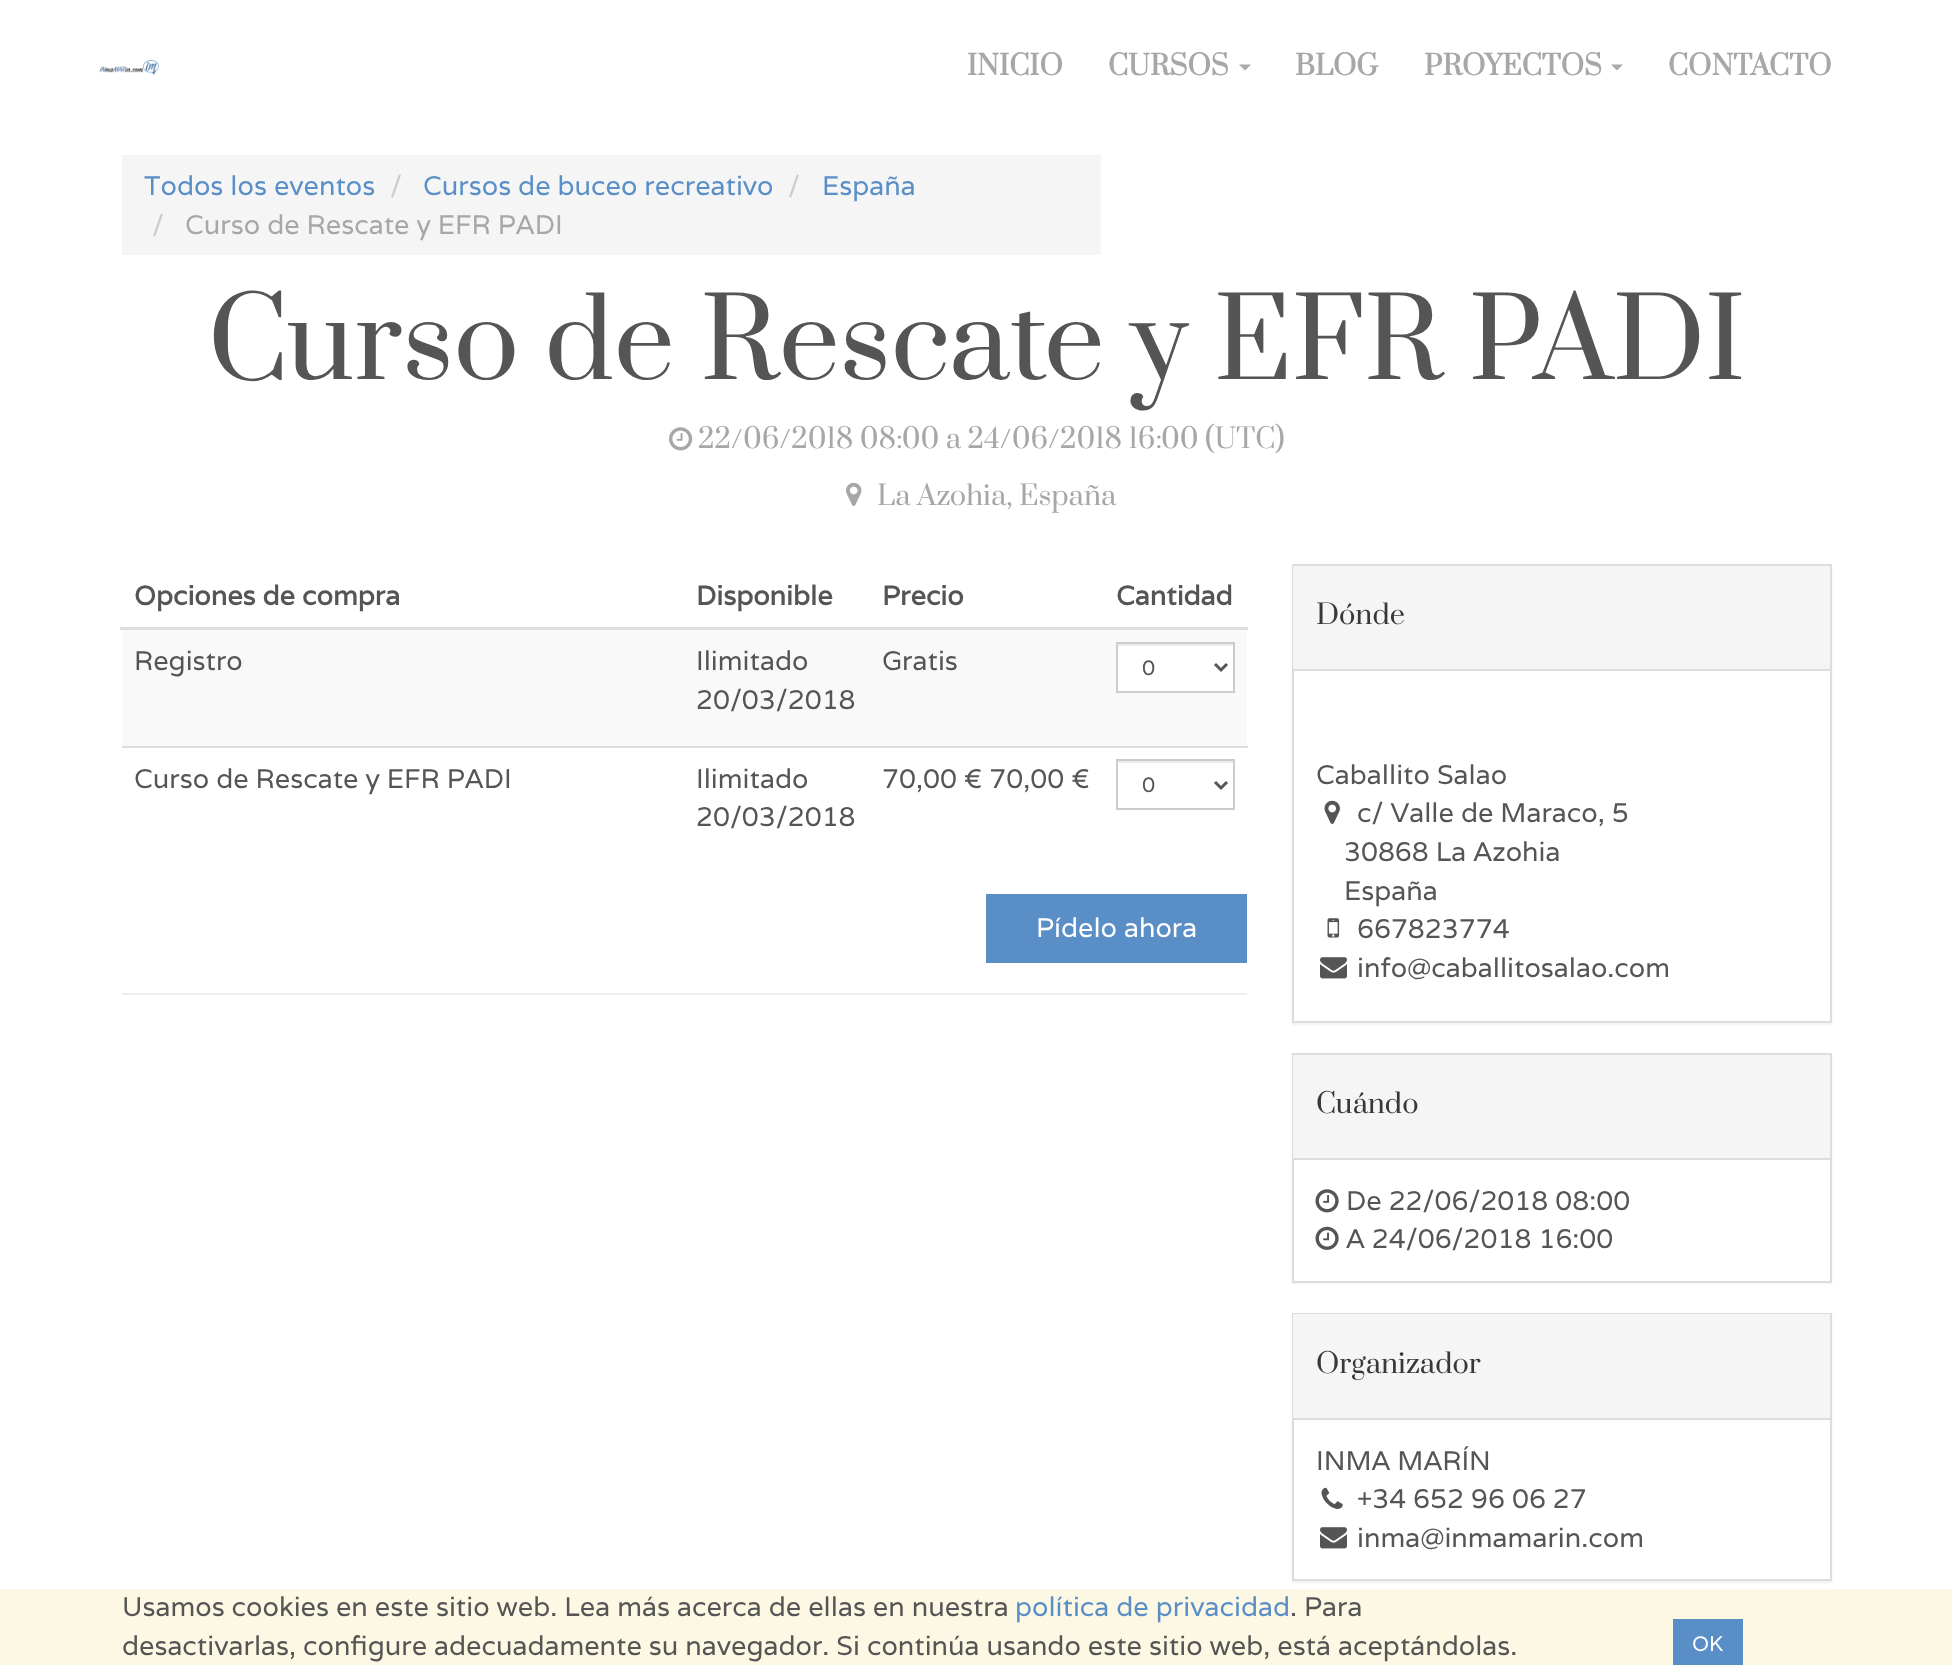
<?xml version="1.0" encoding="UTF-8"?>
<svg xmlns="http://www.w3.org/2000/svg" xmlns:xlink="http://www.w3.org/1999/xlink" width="1952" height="1665">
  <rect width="100%" height="100%" fill="#ffffff" />
  <image x="99" y="60" width="60" height="15" xlink:href="image1.png" />
  <path d="M 1239 64.5 h 12 l -6 6 z" fill="#aaaaaa" />
  <path d="M 1611 64.5 h 12 l -6 6 z" fill="#aaaaaa" />
  <rect x="122" y="155" width="979" height="100" fill="#f5f5f5" />
  <image x="669" y="427" width="24" height="24" xlink:href="image2.png" />
  <image x="846" y="482" width="16" height="24" xlink:href="image3.png" />
  <rect x="120" y="627" width="1128" height="3" fill="#dddddd" />
  <rect x="122" y="630" width="1125" height="116" fill="#f9f9f9" />
  <rect x="1118" y="646" width="115" height="45" fill="#ffffff" />
  <rect x="1118" y="644" width="115" height="2" fill="#ececec" />
  <rect x="1117" y="643" width="117" height="49" fill="none" stroke="#cccccc" stroke-width="2" />
  <path d="M 1215 664 l 6 6 l 6 -6" fill="none" stroke="#555555" stroke-width="3" />
  <rect x="122" y="746" width="1126" height="2" fill="#dddddd" />
  <rect x="1118" y="761" width="115" height="2" fill="#ececec" />
  <rect x="1117" y="760" width="117" height="49" fill="none" stroke="#cccccc" stroke-width="2" />
  <path d="M 1215 782 l 6 6 l 6 -6" fill="none" stroke="#555555" stroke-width="3" />
  <rect x="986" y="894" width="261" height="69" fill="#598ec7" />
  <rect x="122" y="993" width="1125" height="2" fill="#eeeeee" />
  <rect x="1292" y="566" width="540" height="459" fill="#000000" fill-opacity="0.05" filter="blur(1px)" />
  <rect x="1294" y="671" width="536" height="350" fill="#ffffff" />
  <rect x="1293" y="565" width="538" height="457" fill="none" stroke="#dddddd" stroke-width="2" />
  <rect x="1293" y="566" width="537" height="103" fill="#f5f5f5" />
  <rect x="1293" y="669" width="537" height="2" fill="#dddddd" />
  <image x="1324" y="800" width="16" height="24" xlink:href="image4.png" />
  <image x="1327" y="918" width="13" height="20" xlink:href="image5.png" />
  <image x="1320" y="957" width="27" height="22" xlink:href="image6.png" />
  <rect x="1292" y="1055" width="540" height="229" fill="#000000" fill-opacity="0.05" filter="blur(1px)" />
  <rect x="1294" y="1160" width="536" height="121" fill="#ffffff" />
  <rect x="1293" y="1054" width="538" height="228" fill="none" stroke="#dddddd" stroke-width="2" />
  <rect x="1293" y="1055" width="537" height="103" fill="#f5f5f5" />
  <rect x="1293" y="1158" width="537" height="2" fill="#dddddd" />
  <image x="1315" y="1189" width="24" height="24" xlink:href="image7.png" />
  <image x="1315" y="1226" width="24" height="24" xlink:href="image8.png" />
  <rect x="1292" y="1314" width="540" height="269" fill="#000000" fill-opacity="0.05" filter="blur(1px)" />
  <rect x="1294" y="1420" width="536" height="159" fill="#ffffff" />
  <rect x="1293" y="1314" width="538" height="266" fill="none" stroke="#dddddd" stroke-width="2" />
  <rect x="1293" y="1314" width="537" height="104" fill="#f5f5f5" />
  <rect x="1293" y="1418" width="537" height="2" fill="#dddddd" />
  <image x="1321" y="1487" width="22" height="22" xlink:href="image9.png" />
  <image x="1320" y="1527" width="27" height="22" xlink:href="image6.png" />
  <rect y="1589" width="1952" height="76" fill="#fcf8e3" />
  <rect x="1673" y="1619" width="70" height="46" fill="#598ec7" />
  <text x="967" y="75" style="font-family: Prata; font-size: 27px; font-weight: bold; fill: #a7a7a7">INICIO</text>
  <text x="1108" y="75" style="font-family: Prata; font-size: 27px; font-weight: bold; fill: #a7a7a7">CURSOS</text>
  <text x="1295" y="75" style="font-family: Prata; font-size: 27px; font-weight: bold; fill: #a7a7a7">BLOG</text>
  <text x="1424" y="75" style="font-family: Prata; font-size: 27px; font-weight: bold; fill: #a7a7a7">PROYECTOS</text>
  <text x="1668" y="75" style="font-family: Prata; font-size: 27px; font-weight: bold; fill: #a7a7a7">CONTACTO</text>
  <text x="144" y="195" style="font-family: Varela; font-size: 27px; fill: #598ec7">Todos los eventos</text>
  <text x="390" y="195" style="font-family: Varela; font-size: 27px; fill: #cccccc">/</text>
  <text x="423" y="195" style="font-family: Varela; font-size: 27px; fill: #598ec7">Cursos de buceo recreativo</text>
  <text x="788" y="195" style="font-family: Varela; font-size: 27px; fill: #cccccc">/</text>
  <text x="822" y="195" style="font-family: Varela; font-size: 27px; fill: #598ec7">España</text>
  <text x="152" y="234" style="font-family: Varela; font-size: 27px; fill: #cccccc">/</text>
  <text x="185" y="234" style="font-family: Varela; font-size: 27px; fill: #a7a7a7">Curso de Rescate y EFR PADI</text>
  <text x="208" y="379" style="font-family: Prata; font-size: 108px; fill: #555555">Curso de Rescate y EFR PADI</text>
  <text x="698" y="448" style="font-family: Prata; font-size: 27px; fill: #a7a7a7">22/06/2018 08:00 a 24/06/2018 16:00 (UTC)</text>
  <text x="877" y="505" style="font-family: Prata; font-size: 27px; fill: #a7a7a7">La Azohia, España</text>
  <text x="134" y="605" style="font-family: Varela; font-size: 27px; font-weight: bold; fill: #555555">Opciones de compra</text>
  <text x="696" y="605" style="font-family: Varela; font-size: 27px; font-weight: bold; fill: #555555">Disponible</text>
  <text x="882" y="605" style="font-family: Varela; font-size: 27px; font-weight: bold; fill: #555555">Precio</text>
  <text x="1116" y="605" style="font-family: Varela; font-size: 27px; font-weight: bold; fill: #555555">Cantidad</text>
  <text x="134" y="670" style="font-family: Varela; font-size: 27px; fill: #555555">Registro</text>
  <text x="696" y="670" style="font-family: Varela; font-size: 27px; fill: #555555">Ilimitado</text>
  <text x="696" y="709" style="font-family: Varela; font-size: 27px; fill: #555555">20/03/2018</text>
  <text x="882" y="670" style="font-family: Varela; font-size: 27px; fill: #555555">Gratis</text>
  <text x="1142" y="675" style="font-family: Varela; font-size: 21px; fill: #555555">0</text>
  <text x="134" y="788" style="font-family: Varela; font-size: 27px; fill: #555555">Curso de Rescate y EFR PADI</text>
  <text x="696" y="788" style="font-family: Varela; font-size: 27px; fill: #555555">Ilimitado</text>
  <text x="696" y="826" style="font-family: Varela; font-size: 27px; fill: #555555">20/03/2018</text>
  <text x="882" y="788" style="font-family: Varela; font-size: 27px; fill: #555555">70,00 € 70,00 €</text>
  <text x="1142" y="792" style="font-family: Varela; font-size: 21px; fill: #555555">0</text>
  <text x="1036" y="937" style="font-family: Varela; font-size: 27px; fill: #ffffff">Pídelo ahora</text>
  <text x="1316" y="624" style="font-family: Prata; font-size: 27px; fill: #383838">Dónde</text>
  <text x="1316" y="784" style="font-family: Varela; font-size: 27px; fill: #555555">Caballito Salao</text>
  <text x="1357" y="822" style="font-family: Varela; font-size: 27px; fill: #555555">c/ Valle de Maraco, 5</text>
  <text x="1344" y="861" style="font-family: Varela; font-size: 27px; fill: #555555">30868 La Azohia</text>
  <text x="1344" y="900" style="font-family: Varela; font-size: 27px; fill: #555555">España</text>
  <text x="1357" y="938" style="font-family: Varela; font-size: 27px; fill: #555555">667823774</text>
  <text x="1357" y="977" style="font-family: Varela; font-size: 27px; fill: #555555">info@caballitosalao.com</text>
  <text x="1316" y="1113" style="font-family: Prata; font-size: 27px; fill: #383838">Cuándo</text>
  <text x="1346" y="1210" style="font-family: Varela; font-size: 27px; fill: #555555">De 22/06/2018 08:00</text>
  <text x="1346" y="1248" style="font-family: Varela; font-size: 27px; fill: #555555">A 24/06/2018 16:00</text>
  <text x="1316" y="1373" style="font-family: Prata; font-size: 27px; fill: #383838">Organizador</text>
  <text x="1316" y="1470" style="font-family: Varela; font-size: 27px; fill: #555555">INMA MARÍN</text>
  <text x="1357" y="1508" style="font-family: Varela; font-size: 27px; fill: #555555">+34 652 96 06 27</text>
  <text x="1357" y="1547" style="font-family: Varela; font-size: 27px; fill: #555555">inma@inmamarin.com</text>
  <text x="122" y="1616" style="font-family: Varela; font-size: 27px; fill: #555555">Usamos cookies en este sitio web. Lea más acerca de ellas en nuestra</text>
  <text x="1015" y="1616" style="font-family: Varela; font-size: 27px; fill: #598ec7">política de privacidad</text>
  <text x="1290" y="1616" style="font-family: Varela; font-size: 27px; fill: #555555">. Para</text>
  <text x="122" y="1655" style="font-family: Varela; font-size: 27px; fill: #555555">desactivarlas, configure adecuadamente su navegador. Si continúa usando este sitio web, está aceptándolas.</text>
  <text x="1692" y="1651" style="font-family: Varela; font-size: 21px; fill: #ffffff">OK</text>
</svg>
